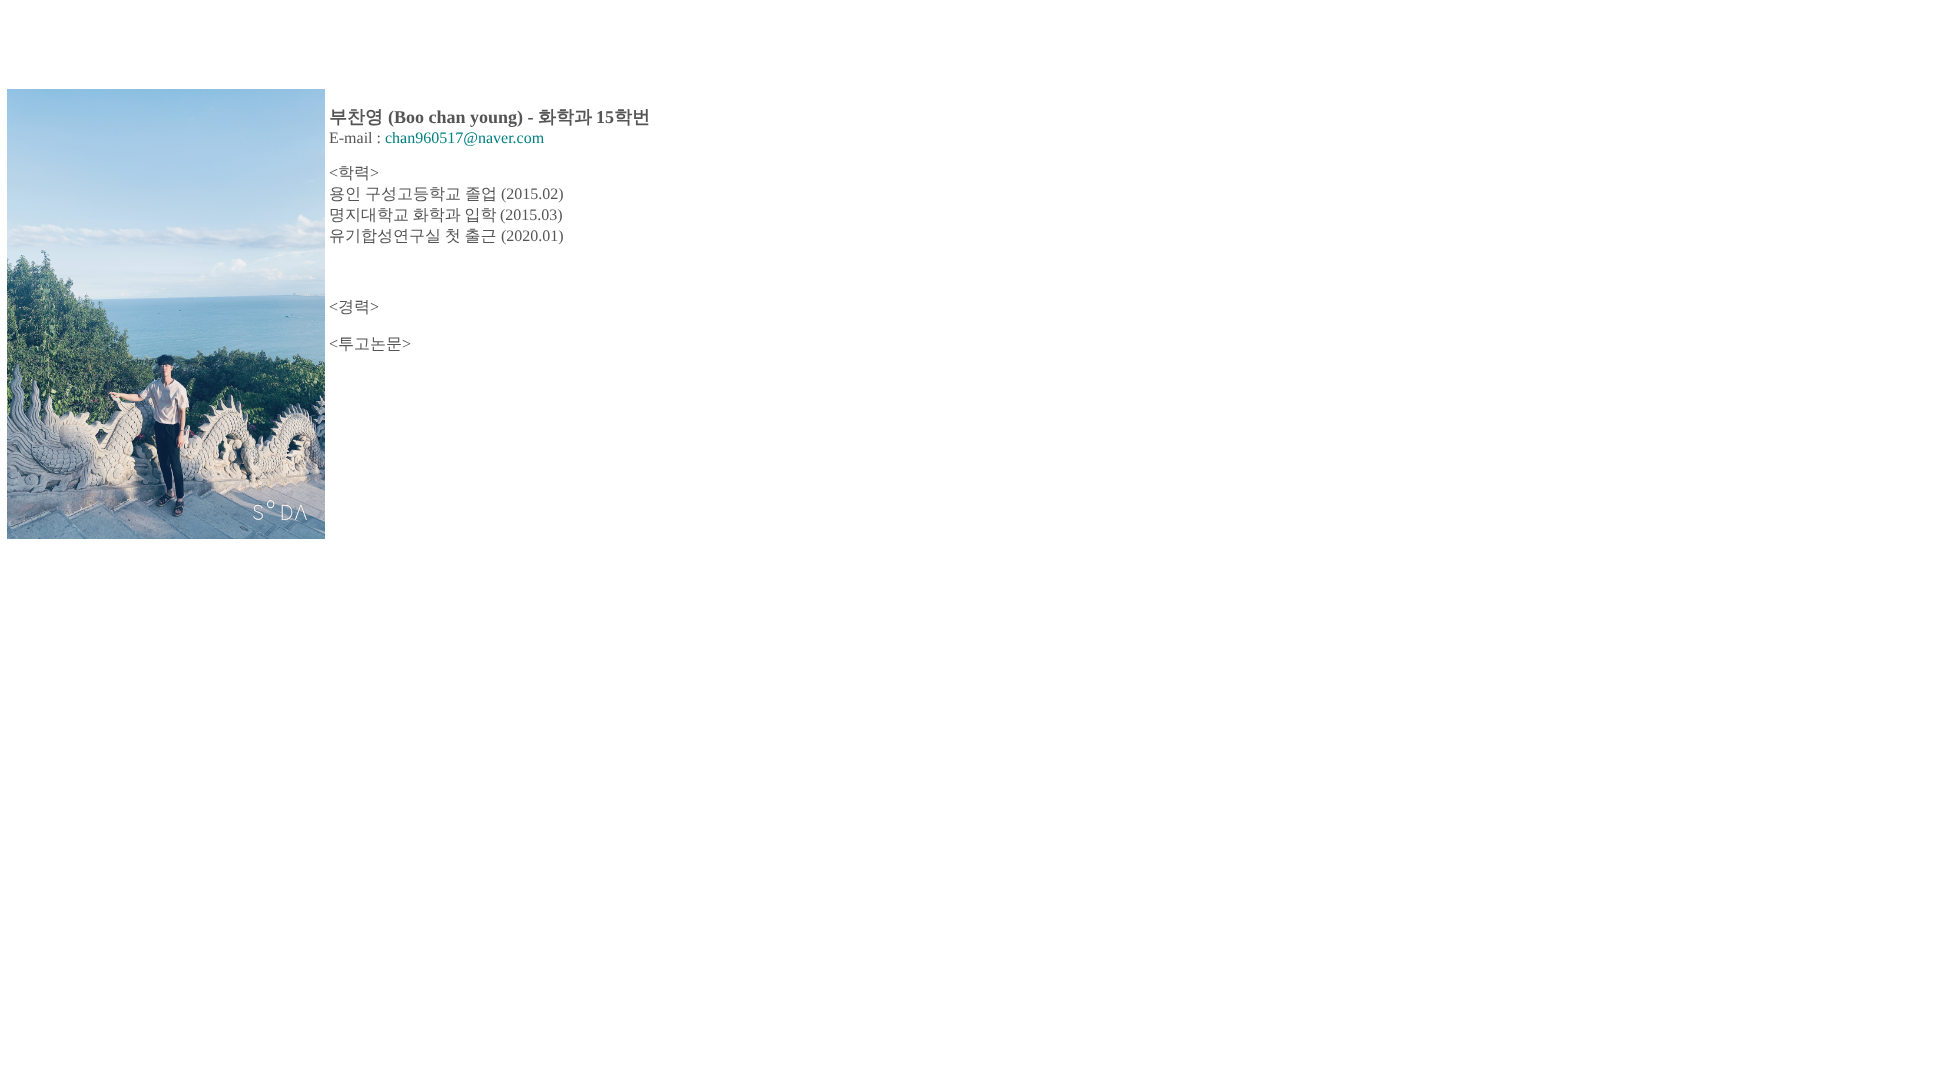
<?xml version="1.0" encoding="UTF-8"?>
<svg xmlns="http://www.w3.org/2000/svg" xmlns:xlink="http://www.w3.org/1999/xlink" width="1960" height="1076">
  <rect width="100%" height="100%" fill="#ffffff" />
  <image x="7" y="89" width="318" height="450" xlink:href="image1.png" />
  <text x="329" y="123" style="font-family: WenQuanYi Zen Hei; font-size: 18px; font-weight: bold; fill: #555555">부찬영</text>
  <text x="388" y="123" style="font-family: Liberation Serif; font-size: 18px; font-weight: bold; fill: #555555">(Boo chan young) -</text>
  <text x="538" y="123" style="font-family: WenQuanYi Zen Hei; font-size: 18px; font-weight: bold; fill: #555555">화학과</text>
  <text x="596" y="123" style="font-family: Liberation Serif; font-size: 18px; font-weight: bold; fill: #555555">15</text>
  <text x="614" y="123" style="font-family: WenQuanYi Zen Hei; font-size: 18px; font-weight: bold; fill: #555555">학번</text>
  <text x="329" y="143" style="font-family: Liberation Serif; font-size: 16px; fill: #555555">E-mail :</text>
  <text x="385" y="143" style="font-family: Liberation Serif; font-size: 16px; fill: #008080">chan960517@naver.com</text>
  <text x="329" y="178" style="font-family: Liberation Serif; font-size: 16px; fill: #555555">&lt;</text>
  <text x="338" y="178" style="font-family: WenQuanYi Zen Hei; font-size: 16px; font-weight: 500; fill: #555555">학력</text>
  <text x="370" y="178" style="font-family: Liberation Serif; font-size: 16px; fill: #555555">&gt;</text>
  <text x="329" y="199" style="font-family: WenQuanYi Zen Hei; font-size: 16px; font-weight: 500; fill: #555555">용인</text>
  <text x="365" y="199" style="font-family: WenQuanYi Zen Hei; font-size: 16px; font-weight: 500; fill: #555555">구성고등학교</text>
  <text x="465" y="199" style="font-family: WenQuanYi Zen Hei; font-size: 16px; font-weight: 500; fill: #555555">졸업</text>
  <text x="501" y="199" style="font-family: Liberation Serif; font-size: 16px; fill: #555555">(2015.02)</text>
  <text x="329" y="220" word-spacing="-1" style="font-family: WenQuanYi Zen Hei; font-size: 16px; font-weight: 500; fill: #555555">명지대학교 화학과 입학</text>
  <text x="500" y="220" style="font-family: Liberation Serif; font-size: 16px; fill: #555555">(2015.03)</text>
  <text x="329" y="241" word-spacing="-1" style="font-family: WenQuanYi Zen Hei; font-size: 16px; font-weight: 500; fill: #555555">유기합성연구실 첫 출근</text>
  <text x="501" y="241" style="font-family: Liberation Serif; font-size: 16px; fill: #555555">(2020.01)</text>
  <text x="329" y="312" style="font-family: Liberation Serif; font-size: 16px; fill: #555555">&lt;</text>
  <text x="338" y="312" style="font-family: WenQuanYi Zen Hei; font-size: 16px; font-weight: 500; fill: #555555">경력</text>
  <text x="370" y="312" style="font-family: Liberation Serif; font-size: 16px; fill: #555555">&gt;</text>
  <text x="329" y="349" style="font-family: Liberation Serif; font-size: 16px; fill: #555555">&lt;</text>
  <text x="338" y="349" style="font-family: WenQuanYi Zen Hei; font-size: 16px; font-weight: 500; fill: #555555">투고논문</text>
  <text x="402" y="349" style="font-family: Liberation Serif; font-size: 16px; fill: #555555">&gt;</text>
</svg>
